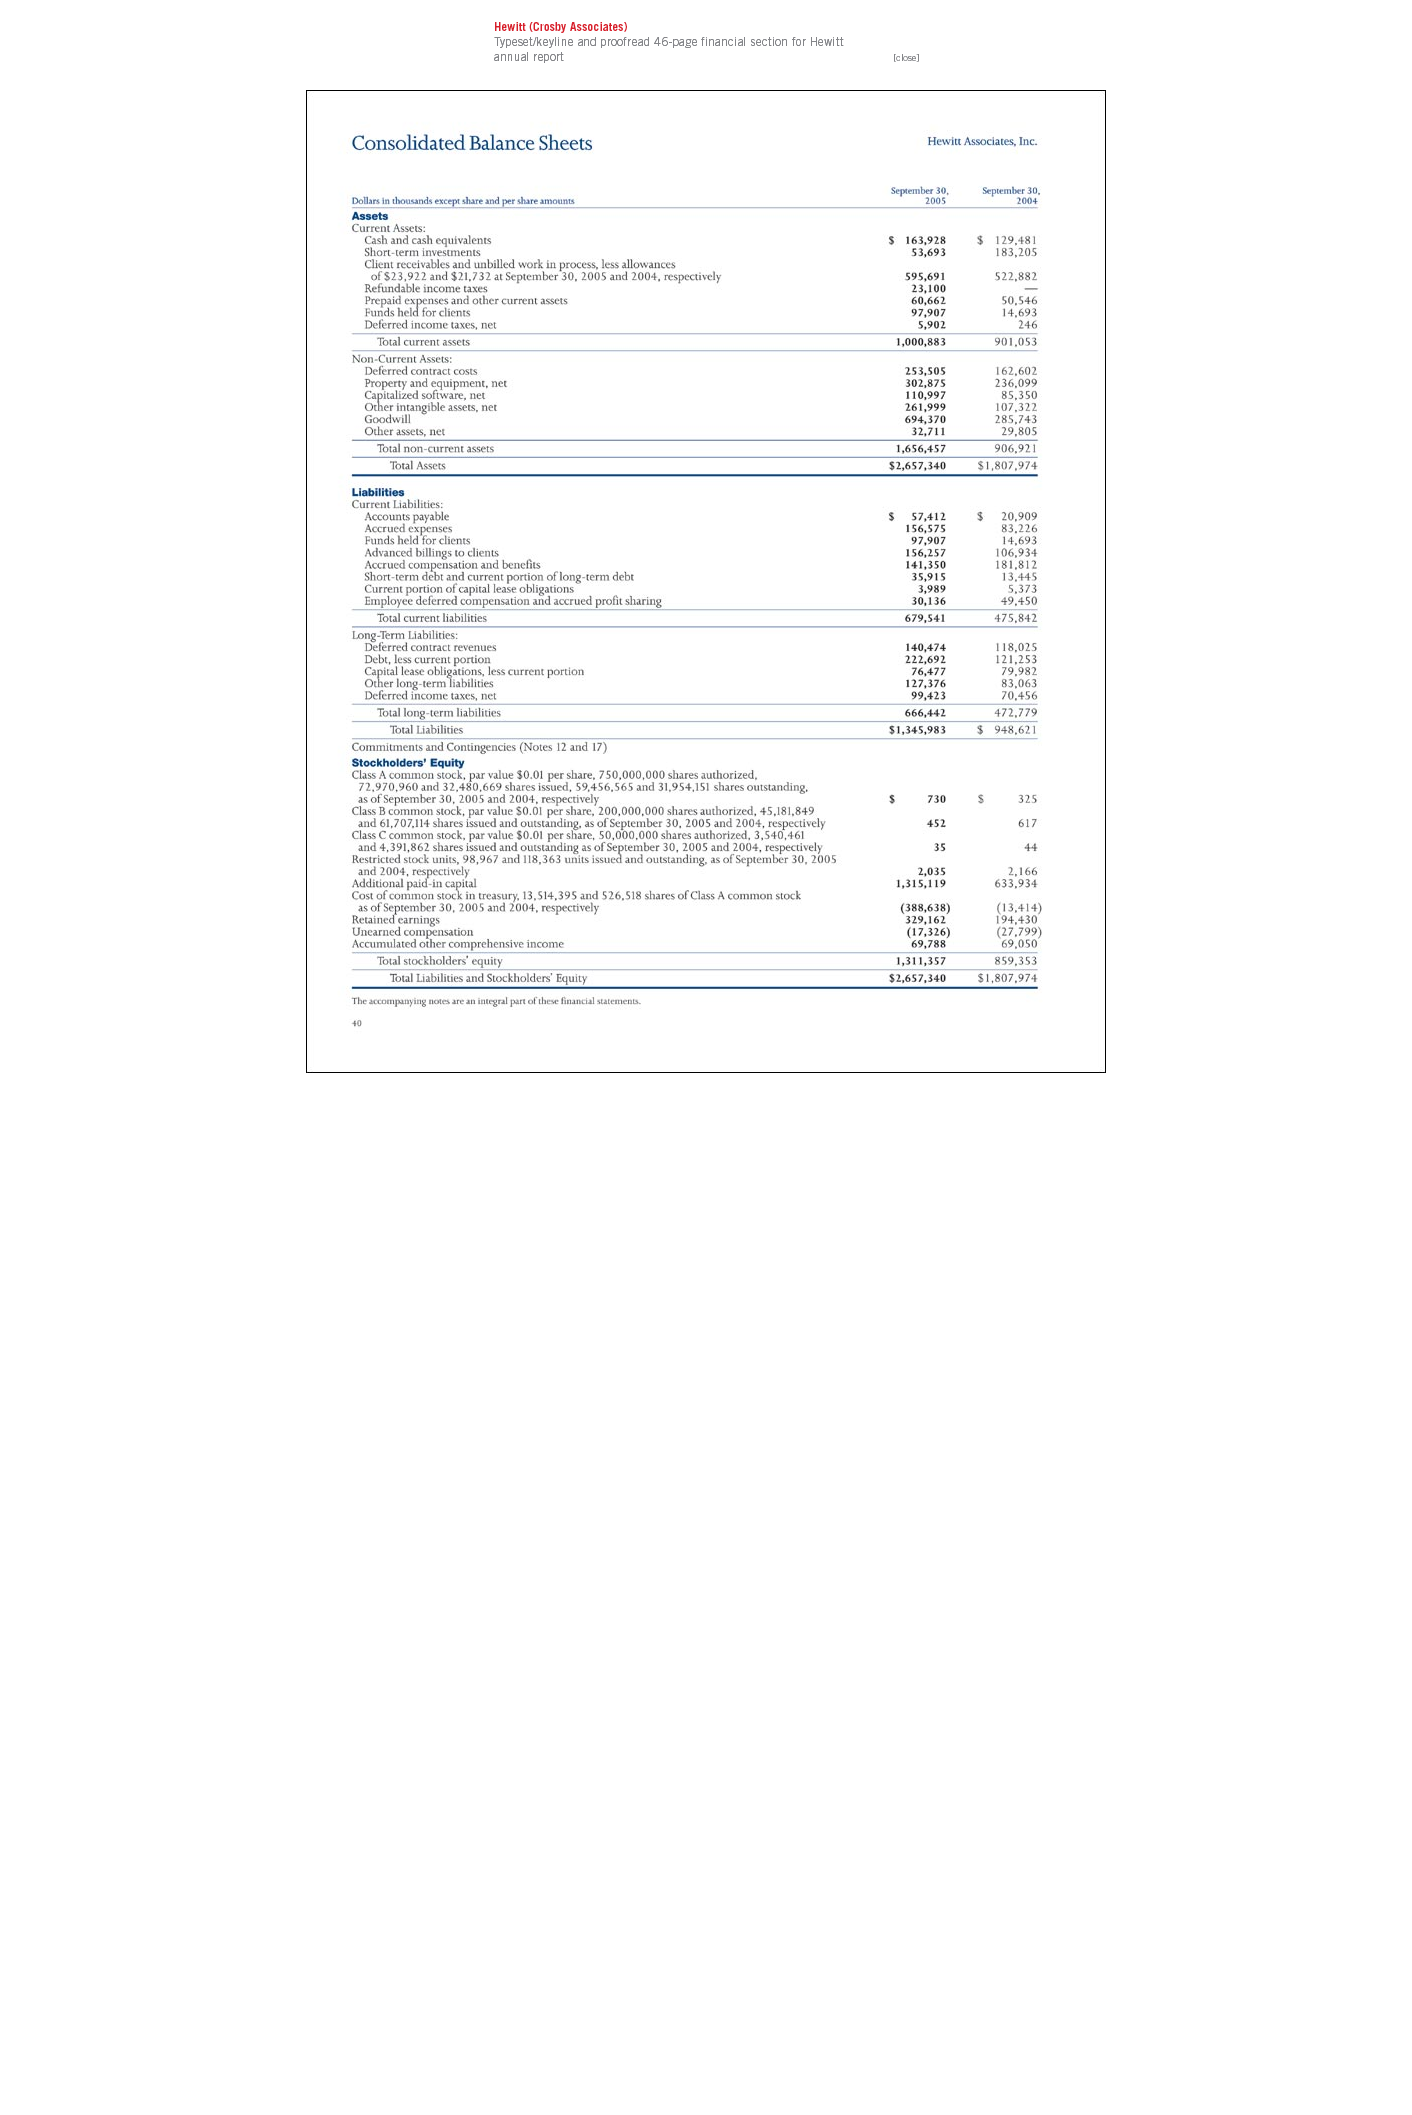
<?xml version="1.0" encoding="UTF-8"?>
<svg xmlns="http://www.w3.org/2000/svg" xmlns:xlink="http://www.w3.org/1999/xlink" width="1412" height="2115">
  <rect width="100%" height="100%" fill="#ffffff" />
  <image x="494" y="22" width="425" height="41" xlink:href="image1.png" />
  <image x="306" y="90" width="800" height="983" xlink:href="image2.png" />
</svg>
